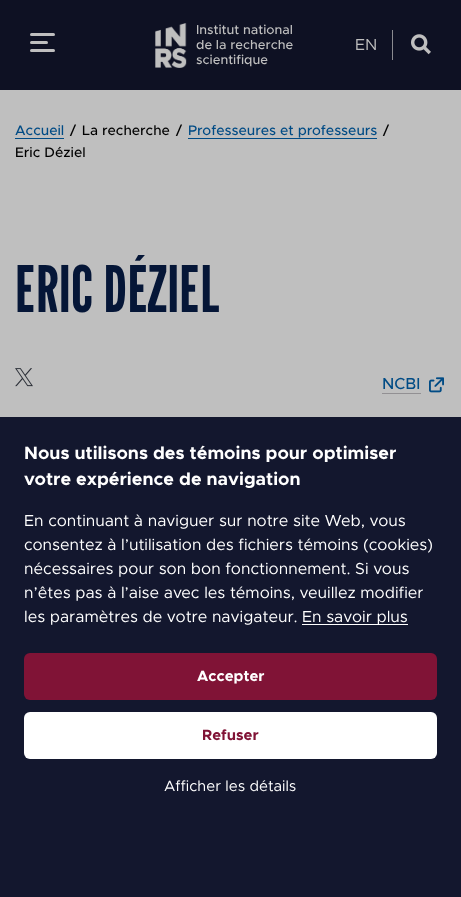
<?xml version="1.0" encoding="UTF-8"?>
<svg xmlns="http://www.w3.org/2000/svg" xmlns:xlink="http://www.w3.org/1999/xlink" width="461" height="897">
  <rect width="100%" height="100%" fill="#bfbfbf" />
  <rect width="461" height="90" fill="#0e1123" />
  <rect x="30" y="41" width="18" height="3" rx="1.5" fill="#bfbfbf" />
  <rect x="30" y="33" width="25" height="3" rx="1.5" fill="#bfbfbf" />
  <rect x="30" y="49" width="25" height="3" rx="1.5" fill="#bfbfbf" />
  <image x="155" y="23" width="32" height="45" xlink:href="image1.png" />
  <rect x="392" y="30" width="1" height="30" fill="#8a8b90" />
  <image x="411" y="34" width="20" height="21" xlink:href="image2.png" />
  <rect x="15" y="138" width="49" height="1" fill="#004b85" />
  <rect x="188" y="138" width="189" height="1" fill="#004b85" />
  <image x="15" y="368" width="18" height="19" xlink:href="image3.png" />
  <image x="429" y="377" width="15" height="16" xlink:href="image4.png" />
  <rect x="382" y="393" width="39" height="1" fill="#929093" />
  <rect y="417" width="461" height="480" fill="#13172e" />
  <rect x="302" y="624" width="106" height="1" fill="#ffffff" />
  <rect x="24" y="653" width="413" height="47" rx="6" fill="#801336" />
  <rect x="24" y="712" width="413" height="47" rx="6" fill="#ffffff" />
  <text x="196" y="34" style="font-family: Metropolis; font-size: 13px; font-weight: 500; fill: #bfbfbf">Institut national</text>
  <text x="196" y="49" style="font-family: Metropolis; font-size: 13px; font-weight: 500; fill: #bfbfbf">de la recherche</text>
  <text x="196" y="64" style="font-family: Metropolis; font-size: 13px; font-weight: 500; fill: #bfbfbf">scientifique</text>
  <text x="355" y="50" style="font-family: Metropolis; font-size: 16px; fill: #bfbfbf">EN</text>
  <text x="15" y="135" style="font-family: Metropolis; font-size: 14px; font-weight: 500; fill: #004b85">Accueil</text>
  <text x="70" y="135" style="font-family: Metropolis; font-size: 14px; font-weight: 500; fill: #000000">/</text>
  <text x="82" y="135" style="font-family: Metropolis; font-size: 14px; font-weight: 500; fill: #000000">La recherche</text>
  <text x="176" y="135" style="font-family: Metropolis; font-size: 14px; font-weight: 500; fill: #000000">/</text>
  <text x="188" y="135" style="font-family: Metropolis; font-size: 14px; font-weight: 500; fill: #004b85">Professeures et professeurs</text>
  <text x="383" y="135" style="font-family: Metropolis; font-size: 14px; font-weight: 500; fill: #000000">/</text>
  <text x="15" y="157" style="font-family: Metropolis; font-size: 14px; font-weight: 500; fill: #000000">Eric Déziel</text>
  <text x="15" y="312" style="font-family: League Gothic; font-size: 64px; fill: #051637">ERIC DÉZIEL</text>
  <text x="382" y="389" style="font-family: Metropolis; font-size: 16px; font-weight: 500; fill: #004b85">NCBI</text>
  <text x="24" y="459" style="font-family: Metropolis; font-size: 18px; font-weight: bold; fill: #ffffff">Nous utilisons des témoins pour optimiser</text>
  <text x="24" y="485" style="font-family: Metropolis; font-size: 18px; font-weight: bold; fill: #ffffff">votre expérience de navigation</text>
  <text x="24" y="526" style="font-family: Metropolis; font-size: 16px; fill: #ffffff">En continuant à naviguer sur notre site Web, vous</text>
  <text x="24" y="550" style="font-family: Metropolis; font-size: 16px; fill: #ffffff">consentez à l’utilisation des fichiers témoins (cookies)</text>
  <text x="24" y="574" style="font-family: Metropolis; font-size: 16px; fill: #ffffff">nécessaires pour son bon fonctionnement. Si vous</text>
  <text x="24" y="598" style="font-family: Metropolis; font-size: 16px; fill: #ffffff">n’êtes pas à l’aise avec les témoins, veuillez modifier</text>
  <text x="24" y="622" style="font-family: Metropolis; font-size: 16px; fill: #ffffff">les paramètres de votre navigateur.</text>
  <text x="302" y="622" style="font-family: Metropolis; font-size: 16px; fill: #ffffff">En savoir plus</text>
  <text x="197" y="681" style="font-family: Metropolis; font-size: 15px; font-weight: bold; fill: #ffffff">Accepter</text>
  <text x="202" y="740" style="font-family: Metropolis; font-size: 15px; font-weight: bold; fill: #801336">Refuser</text>
  <text x="164" y="791" style="font-family: Metropolis; font-size: 15px; fill: #ffffff">Afficher les détails</text>
</svg>
